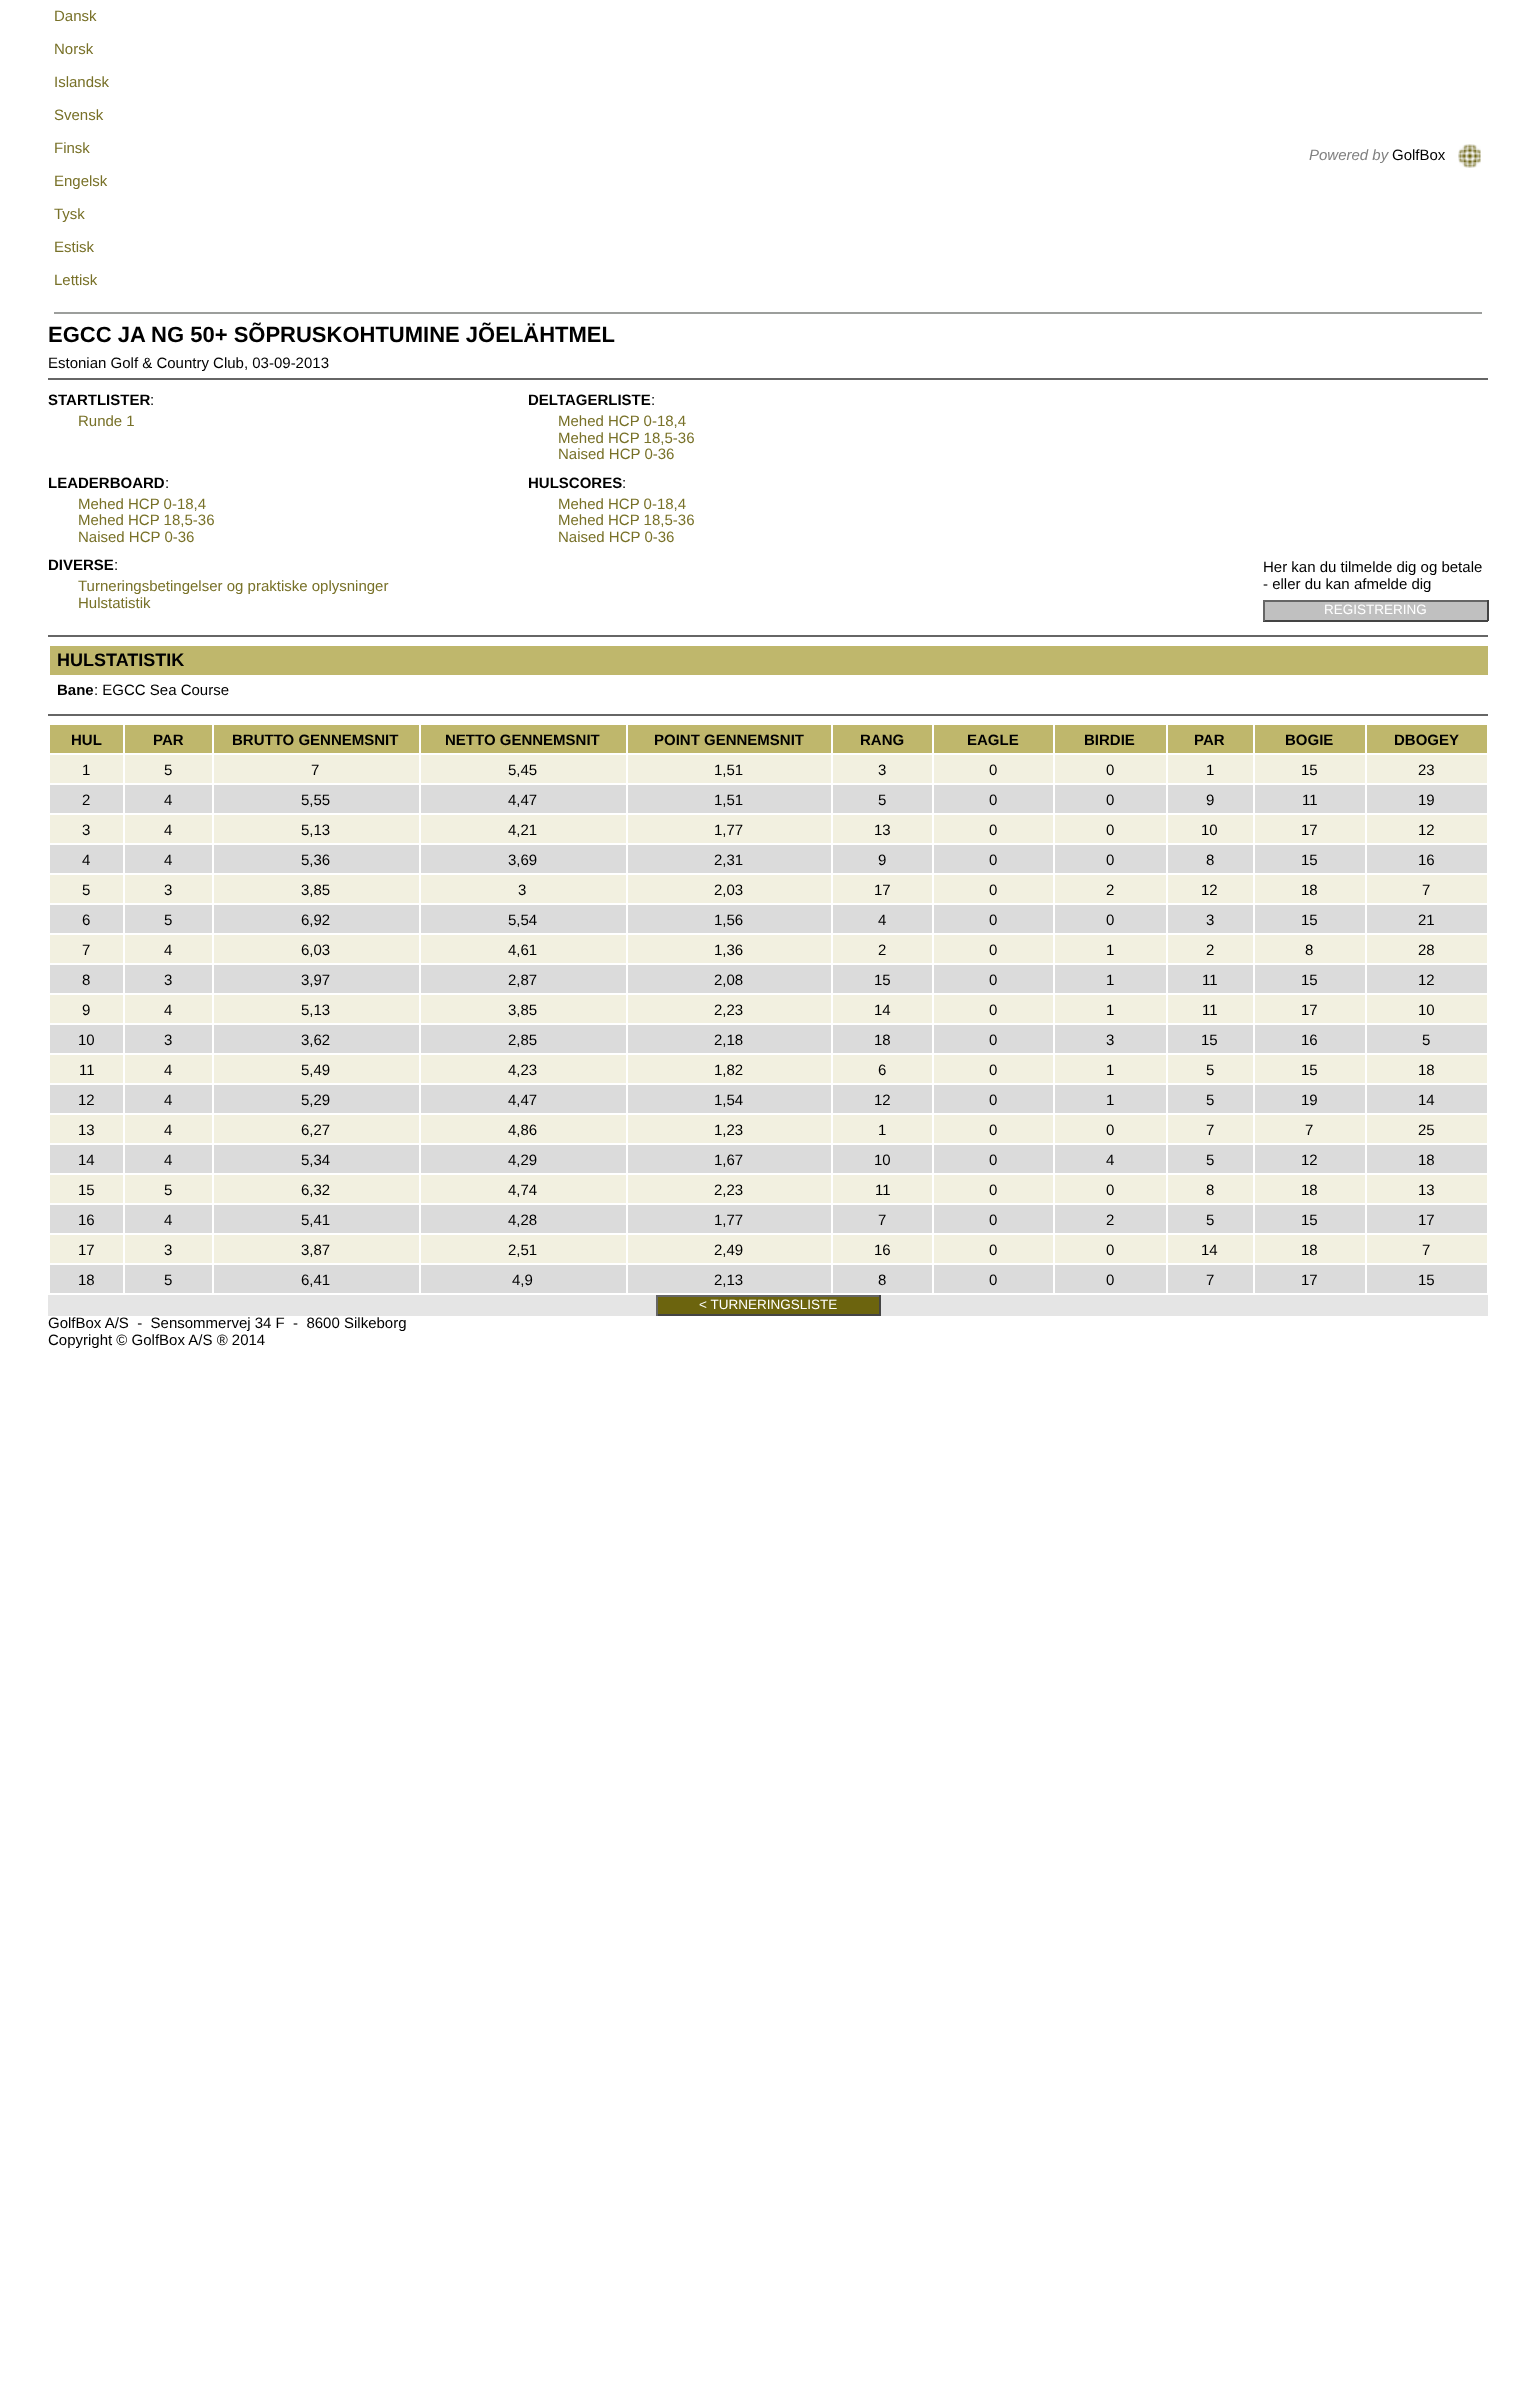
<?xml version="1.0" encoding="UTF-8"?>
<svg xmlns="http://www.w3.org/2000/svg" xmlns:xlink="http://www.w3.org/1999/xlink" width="1536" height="2408">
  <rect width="100%" height="100%" fill="#ffffff" />
  <image x="1458" y="144" width="23" height="24" xlink:href="image1.png" />
  <rect x="54" y="312" width="1428" height="2" fill="#9c9e9c" />
  <rect x="48" y="378" width="1440" height="2" fill="#666666" />
  <rect x="1265" y="602" width="222" height="18" fill="#c0c0c0" />
  <rect x="1263" y="600" width="225" height="2" fill="#666666" />
  <rect x="1487" y="600" width="2" height="21" fill="#444444" />
  <rect x="1263" y="620" width="225" height="2" fill="#444444" />
  <rect x="1263" y="600" width="2" height="21" fill="#666666" />
  <rect x="48" y="635" width="1440" height="2" fill="#666666" />
  <rect x="50" y="646" width="1438" height="29" fill="#bfb76c" />
  <rect x="48" y="714" width="1440" height="2" fill="#666666" />
  <rect x="50" y="725" width="1437" height="28" fill="#bfb76c" />
  <rect x="50" y="755" width="1437" height="28" fill="#f2f0e0" />
  <rect x="50" y="785" width="1437" height="28" fill="#dbdbdb" />
  <rect x="50" y="815" width="1437" height="28" fill="#f2f0e0" />
  <rect x="50" y="845" width="1437" height="28" fill="#dbdbdb" />
  <rect x="50" y="875" width="1437" height="28" fill="#f2f0e0" />
  <rect x="50" y="905" width="1437" height="28" fill="#dbdbdb" />
  <rect x="50" y="935" width="1437" height="28" fill="#f2f0e0" />
  <rect x="50" y="965" width="1437" height="28" fill="#dbdbdb" />
  <rect x="50" y="995" width="1437" height="28" fill="#f2f0e0" />
  <rect x="50" y="1025" width="1437" height="28" fill="#dbdbdb" />
  <rect x="50" y="1055" width="1437" height="28" fill="#f2f0e0" />
  <rect x="50" y="1085" width="1437" height="28" fill="#dbdbdb" />
  <rect x="50" y="1115" width="1437" height="28" fill="#f2f0e0" />
  <rect x="50" y="1145" width="1437" height="28" fill="#dbdbdb" />
  <rect x="50" y="1175" width="1437" height="28" fill="#f2f0e0" />
  <rect x="50" y="1205" width="1437" height="28" fill="#dbdbdb" />
  <rect x="50" y="1235" width="1437" height="28" fill="#f2f0e0" />
  <rect x="50" y="1265" width="1437" height="28" fill="#dbdbdb" />
  <rect x="123" y="723" width="2" height="572" fill="#ffffff" />
  <rect x="212" y="723" width="2" height="572" fill="#ffffff" />
  <rect x="419" y="723" width="2" height="572" fill="#ffffff" />
  <rect x="626" y="723" width="2" height="572" fill="#ffffff" />
  <rect x="831" y="723" width="2" height="572" fill="#ffffff" />
  <rect x="932" y="723" width="2" height="572" fill="#ffffff" />
  <rect x="1053" y="723" width="2" height="572" fill="#ffffff" />
  <rect x="1166" y="723" width="2" height="572" fill="#ffffff" />
  <rect x="1253" y="723" width="2" height="572" fill="#ffffff" />
  <rect x="1365" y="723" width="2" height="572" fill="#ffffff" />
  <rect x="48" y="1295" width="1440" height="21" fill="#e5e5e5" />
  <rect x="658" y="1297" width="221" height="17" fill="#6c640e" />
  <rect x="656" y="1295" width="225" height="2" fill="#666666" />
  <rect x="879" y="1295" width="2" height="21" fill="#444444" />
  <rect x="656" y="1314" width="225" height="2" fill="#444444" />
  <rect x="656" y="1295" width="2" height="21" fill="#666666" />
  <text x="54" y="21" style="font-family: Liberation Sans; font-size: 15px; fill: #787128">Dansk</text>
  <text x="54" y="54" style="font-family: Liberation Sans; font-size: 15px; fill: #787128">Norsk</text>
  <text x="54" y="87" style="font-family: Liberation Sans; font-size: 15px; fill: #787128">Islandsk</text>
  <text x="54" y="120" style="font-family: Liberation Sans; font-size: 15px; fill: #787128">Svensk</text>
  <text x="54" y="153" style="font-family: Liberation Sans; font-size: 15px; fill: #787128">Finsk</text>
  <text x="54" y="186" style="font-family: Liberation Sans; font-size: 15px; fill: #787128">Engelsk</text>
  <text x="54" y="219" style="font-family: Liberation Sans; font-size: 15px; fill: #787128">Tysk</text>
  <text x="54" y="252" style="font-family: Liberation Sans; font-size: 15px; fill: #787128">Estisk</text>
  <text x="54" y="285" style="font-family: Liberation Sans; font-size: 15px; fill: #787128">Lettisk</text>
  <text x="1309" y="160" style="font-family: Liberation Sans; font-size: 15px; font-style: italic; fill: #808080">Powered by</text>
  <text x="1392" y="160" style="font-family: Liberation Sans; font-size: 15px; fill: #000000">GolfBox</text>
  <text x="48" y="342" style="font-family: Liberation Sans; font-size: 22px; font-weight: bold; fill: #000000">EGCC JA NG 50+ SÕPRUSKOHTUMINE JÕELÄHTMEL</text>
  <text x="48" y="368" style="font-family: Liberation Sans; font-size: 15px; fill: #000000">Estonian Golf &amp; Country Club, 03-09-2013</text>
  <text x="48" y="405" style="font-family: Liberation Sans; font-size: 15px; font-weight: bold; fill: #000000">STARTLISTER</text>
  <text x="150" y="405" style="font-family: Liberation Sans; font-size: 15px; fill: #000000">:</text>
  <text x="78" y="426" style="font-family: Liberation Sans; font-size: 15px; fill: #787128">Runde 1</text>
  <text x="528" y="405" style="font-family: Liberation Sans; font-size: 15px; font-weight: bold; fill: #000000">DELTAGERLISTE</text>
  <text x="651" y="405" style="font-family: Liberation Sans; font-size: 15px; fill: #000000">:</text>
  <text x="558" y="426" style="font-family: Liberation Sans; font-size: 15px; fill: #787128">Mehed HCP 0-18,4</text>
  <text x="558" y="443" style="font-family: Liberation Sans; font-size: 15px; fill: #787128">Mehed HCP 18,5-36</text>
  <text x="558" y="459" style="font-family: Liberation Sans; font-size: 15px; fill: #787128">Naised HCP 0-36</text>
  <text x="48" y="488" style="font-family: Liberation Sans; font-size: 15px; font-weight: bold; fill: #000000">LEADERBOARD</text>
  <text x="165" y="488" style="font-family: Liberation Sans; font-size: 15px; fill: #000000">:</text>
  <text x="78" y="509" style="font-family: Liberation Sans; font-size: 15px; fill: #787128">Mehed HCP 0-18,4</text>
  <text x="78" y="525" style="font-family: Liberation Sans; font-size: 15px; fill: #787128">Mehed HCP 18,5-36</text>
  <text x="78" y="542" style="font-family: Liberation Sans; font-size: 15px; fill: #787128">Naised HCP 0-36</text>
  <text x="528" y="488" style="font-family: Liberation Sans; font-size: 15px; font-weight: bold; fill: #000000">HULSCORES</text>
  <text x="622" y="488" style="font-family: Liberation Sans; font-size: 15px; fill: #000000">:</text>
  <text x="558" y="509" style="font-family: Liberation Sans; font-size: 15px; fill: #787128">Mehed HCP 0-18,4</text>
  <text x="558" y="525" style="font-family: Liberation Sans; font-size: 15px; fill: #787128">Mehed HCP 18,5-36</text>
  <text x="558" y="542" style="font-family: Liberation Sans; font-size: 15px; fill: #787128">Naised HCP 0-36</text>
  <text x="48" y="570" style="font-family: Liberation Sans; font-size: 15px; font-weight: bold; fill: #000000">DIVERSE</text>
  <text x="114" y="570" style="font-family: Liberation Sans; font-size: 15px; fill: #000000">:</text>
  <text x="78" y="591" style="font-family: Liberation Sans; font-size: 15px; fill: #787128">Turneringsbetingelser og praktiske oplysninger</text>
  <text x="78" y="608" style="font-family: Liberation Sans; font-size: 15px; fill: #787128">Hulstatistik</text>
  <text x="1263" y="572" style="font-family: Liberation Sans; font-size: 15px; fill: #000000">Her kan du tilmelde dig og betale</text>
  <text x="1263" y="589" style="font-family: Liberation Sans; font-size: 15px; fill: #000000">- eller du kan afmelde dig</text>
  <text x="1324" y="614" style="font-family: Liberation Sans; font-size: 13.5px; fill: #ffffff">REGISTRERING</text>
  <text x="57" y="666" style="font-family: Liberation Sans; font-size: 18px; font-weight: bold; fill: #000000">HULSTATISTIK</text>
  <text x="57" y="695" style="font-family: Liberation Sans; font-size: 15px; font-weight: bold; fill: #000000">Bane</text>
  <text x="94" y="695" style="font-family: Liberation Sans; font-size: 15px; fill: #000000">: EGCC Sea Course</text>
  <text x="71" y="745" style="font-family: Liberation Sans; font-size: 15px; font-weight: bold; fill: #000000">HUL</text>
  <text x="153" y="745" style="font-family: Liberation Sans; font-size: 15px; font-weight: bold; fill: #000000">PAR</text>
  <text x="232" y="745" style="font-family: Liberation Sans; font-size: 15px; font-weight: bold; fill: #000000">BRUTTO GENNEMSNIT</text>
  <text x="445" y="745" style="font-family: Liberation Sans; font-size: 15px; font-weight: bold; fill: #000000">NETTO GENNEMSNIT</text>
  <text x="654" y="745" style="font-family: Liberation Sans; font-size: 15px; font-weight: bold; fill: #000000">POINT GENNEMSNIT</text>
  <text x="860" y="745" style="font-family: Liberation Sans; font-size: 15px; font-weight: bold; fill: #000000">RANG</text>
  <text x="967" y="745" style="font-family: Liberation Sans; font-size: 15px; font-weight: bold; fill: #000000">EAGLE</text>
  <text x="1084" y="745" style="font-family: Liberation Sans; font-size: 15px; font-weight: bold; fill: #000000">BIRDIE</text>
  <text x="1194" y="745" style="font-family: Liberation Sans; font-size: 15px; font-weight: bold; fill: #000000">PAR</text>
  <text x="1285" y="745" style="font-family: Liberation Sans; font-size: 15px; font-weight: bold; fill: #000000">BOGIE</text>
  <text x="1394" y="745" style="font-family: Liberation Sans; font-size: 15px; font-weight: bold; fill: #000000">DBOGEY</text>
  <text x="82" y="775" style="font-family: Liberation Sans; font-size: 15px; fill: #000000">1</text>
  <text x="164" y="775" style="font-family: Liberation Sans; font-size: 15px; fill: #000000">5</text>
  <text x="311" y="775" style="font-family: Liberation Sans; font-size: 15px; fill: #000000">7</text>
  <text x="508" y="775" style="font-family: Liberation Sans; font-size: 15px; fill: #000000">5,45</text>
  <text x="714" y="775" style="font-family: Liberation Sans; font-size: 15px; fill: #000000">1,51</text>
  <text x="878" y="775" style="font-family: Liberation Sans; font-size: 15px; fill: #000000">3</text>
  <text x="989" y="775" style="font-family: Liberation Sans; font-size: 15px; fill: #000000">0</text>
  <text x="1106" y="775" style="font-family: Liberation Sans; font-size: 15px; fill: #000000">0</text>
  <text x="1206" y="775" style="font-family: Liberation Sans; font-size: 15px; fill: #000000">1</text>
  <text x="1301" y="775" style="font-family: Liberation Sans; font-size: 15px; fill: #000000">15</text>
  <text x="1418" y="775" style="font-family: Liberation Sans; font-size: 15px; fill: #000000">23</text>
  <text x="82" y="805" style="font-family: Liberation Sans; font-size: 15px; fill: #000000">2</text>
  <text x="164" y="805" style="font-family: Liberation Sans; font-size: 15px; fill: #000000">4</text>
  <text x="301" y="805" style="font-family: Liberation Sans; font-size: 15px; fill: #000000">5,55</text>
  <text x="508" y="805" style="font-family: Liberation Sans; font-size: 15px; fill: #000000">4,47</text>
  <text x="714" y="805" style="font-family: Liberation Sans; font-size: 15px; fill: #000000">1,51</text>
  <text x="878" y="805" style="font-family: Liberation Sans; font-size: 15px; fill: #000000">5</text>
  <text x="989" y="805" style="font-family: Liberation Sans; font-size: 15px; fill: #000000">0</text>
  <text x="1106" y="805" style="font-family: Liberation Sans; font-size: 15px; fill: #000000">0</text>
  <text x="1206" y="805" style="font-family: Liberation Sans; font-size: 15px; fill: #000000">9</text>
  <text x="1302" y="805" style="font-family: Liberation Sans; font-size: 15px; fill: #000000">11</text>
  <text x="1418" y="805" style="font-family: Liberation Sans; font-size: 15px; fill: #000000">19</text>
  <text x="82" y="835" style="font-family: Liberation Sans; font-size: 15px; fill: #000000">3</text>
  <text x="164" y="835" style="font-family: Liberation Sans; font-size: 15px; fill: #000000">4</text>
  <text x="301" y="835" style="font-family: Liberation Sans; font-size: 15px; fill: #000000">5,13</text>
  <text x="508" y="835" style="font-family: Liberation Sans; font-size: 15px; fill: #000000">4,21</text>
  <text x="714" y="835" style="font-family: Liberation Sans; font-size: 15px; fill: #000000">1,77</text>
  <text x="874" y="835" style="font-family: Liberation Sans; font-size: 15px; fill: #000000">13</text>
  <text x="989" y="835" style="font-family: Liberation Sans; font-size: 15px; fill: #000000">0</text>
  <text x="1106" y="835" style="font-family: Liberation Sans; font-size: 15px; fill: #000000">0</text>
  <text x="1201" y="835" style="font-family: Liberation Sans; font-size: 15px; fill: #000000">10</text>
  <text x="1301" y="835" style="font-family: Liberation Sans; font-size: 15px; fill: #000000">17</text>
  <text x="1418" y="835" style="font-family: Liberation Sans; font-size: 15px; fill: #000000">12</text>
  <text x="82" y="865" style="font-family: Liberation Sans; font-size: 15px; fill: #000000">4</text>
  <text x="164" y="865" style="font-family: Liberation Sans; font-size: 15px; fill: #000000">4</text>
  <text x="301" y="865" style="font-family: Liberation Sans; font-size: 15px; fill: #000000">5,36</text>
  <text x="508" y="865" style="font-family: Liberation Sans; font-size: 15px; fill: #000000">3,69</text>
  <text x="714" y="865" style="font-family: Liberation Sans; font-size: 15px; fill: #000000">2,31</text>
  <text x="878" y="865" style="font-family: Liberation Sans; font-size: 15px; fill: #000000">9</text>
  <text x="989" y="865" style="font-family: Liberation Sans; font-size: 15px; fill: #000000">0</text>
  <text x="1106" y="865" style="font-family: Liberation Sans; font-size: 15px; fill: #000000">0</text>
  <text x="1206" y="865" style="font-family: Liberation Sans; font-size: 15px; fill: #000000">8</text>
  <text x="1301" y="865" style="font-family: Liberation Sans; font-size: 15px; fill: #000000">15</text>
  <text x="1418" y="865" style="font-family: Liberation Sans; font-size: 15px; fill: #000000">16</text>
  <text x="82" y="895" style="font-family: Liberation Sans; font-size: 15px; fill: #000000">5</text>
  <text x="164" y="895" style="font-family: Liberation Sans; font-size: 15px; fill: #000000">3</text>
  <text x="301" y="895" style="font-family: Liberation Sans; font-size: 15px; fill: #000000">3,85</text>
  <text x="518" y="895" style="font-family: Liberation Sans; font-size: 15px; fill: #000000">3</text>
  <text x="714" y="895" style="font-family: Liberation Sans; font-size: 15px; fill: #000000">2,03</text>
  <text x="874" y="895" style="font-family: Liberation Sans; font-size: 15px; fill: #000000">17</text>
  <text x="989" y="895" style="font-family: Liberation Sans; font-size: 15px; fill: #000000">0</text>
  <text x="1106" y="895" style="font-family: Liberation Sans; font-size: 15px; fill: #000000">2</text>
  <text x="1201" y="895" style="font-family: Liberation Sans; font-size: 15px; fill: #000000">12</text>
  <text x="1301" y="895" style="font-family: Liberation Sans; font-size: 15px; fill: #000000">18</text>
  <text x="1422" y="895" style="font-family: Liberation Sans; font-size: 15px; fill: #000000">7</text>
  <text x="82" y="925" style="font-family: Liberation Sans; font-size: 15px; fill: #000000">6</text>
  <text x="164" y="925" style="font-family: Liberation Sans; font-size: 15px; fill: #000000">5</text>
  <text x="301" y="925" style="font-family: Liberation Sans; font-size: 15px; fill: #000000">6,92</text>
  <text x="508" y="925" style="font-family: Liberation Sans; font-size: 15px; fill: #000000">5,54</text>
  <text x="714" y="925" style="font-family: Liberation Sans; font-size: 15px; fill: #000000">1,56</text>
  <text x="878" y="925" style="font-family: Liberation Sans; font-size: 15px; fill: #000000">4</text>
  <text x="989" y="925" style="font-family: Liberation Sans; font-size: 15px; fill: #000000">0</text>
  <text x="1106" y="925" style="font-family: Liberation Sans; font-size: 15px; fill: #000000">0</text>
  <text x="1206" y="925" style="font-family: Liberation Sans; font-size: 15px; fill: #000000">3</text>
  <text x="1301" y="925" style="font-family: Liberation Sans; font-size: 15px; fill: #000000">15</text>
  <text x="1418" y="925" style="font-family: Liberation Sans; font-size: 15px; fill: #000000">21</text>
  <text x="82" y="955" style="font-family: Liberation Sans; font-size: 15px; fill: #000000">7</text>
  <text x="164" y="955" style="font-family: Liberation Sans; font-size: 15px; fill: #000000">4</text>
  <text x="301" y="955" style="font-family: Liberation Sans; font-size: 15px; fill: #000000">6,03</text>
  <text x="508" y="955" style="font-family: Liberation Sans; font-size: 15px; fill: #000000">4,61</text>
  <text x="714" y="955" style="font-family: Liberation Sans; font-size: 15px; fill: #000000">1,36</text>
  <text x="878" y="955" style="font-family: Liberation Sans; font-size: 15px; fill: #000000">2</text>
  <text x="989" y="955" style="font-family: Liberation Sans; font-size: 15px; fill: #000000">0</text>
  <text x="1106" y="955" style="font-family: Liberation Sans; font-size: 15px; fill: #000000">1</text>
  <text x="1206" y="955" style="font-family: Liberation Sans; font-size: 15px; fill: #000000">2</text>
  <text x="1305" y="955" style="font-family: Liberation Sans; font-size: 15px; fill: #000000">8</text>
  <text x="1418" y="955" style="font-family: Liberation Sans; font-size: 15px; fill: #000000">28</text>
  <text x="82" y="985" style="font-family: Liberation Sans; font-size: 15px; fill: #000000">8</text>
  <text x="164" y="985" style="font-family: Liberation Sans; font-size: 15px; fill: #000000">3</text>
  <text x="301" y="985" style="font-family: Liberation Sans; font-size: 15px; fill: #000000">3,97</text>
  <text x="508" y="985" style="font-family: Liberation Sans; font-size: 15px; fill: #000000">2,87</text>
  <text x="714" y="985" style="font-family: Liberation Sans; font-size: 15px; fill: #000000">2,08</text>
  <text x="874" y="985" style="font-family: Liberation Sans; font-size: 15px; fill: #000000">15</text>
  <text x="989" y="985" style="font-family: Liberation Sans; font-size: 15px; fill: #000000">0</text>
  <text x="1106" y="985" style="font-family: Liberation Sans; font-size: 15px; fill: #000000">1</text>
  <text x="1202" y="985" style="font-family: Liberation Sans; font-size: 15px; fill: #000000">11</text>
  <text x="1301" y="985" style="font-family: Liberation Sans; font-size: 15px; fill: #000000">15</text>
  <text x="1418" y="985" style="font-family: Liberation Sans; font-size: 15px; fill: #000000">12</text>
  <text x="82" y="1015" style="font-family: Liberation Sans; font-size: 15px; fill: #000000">9</text>
  <text x="164" y="1015" style="font-family: Liberation Sans; font-size: 15px; fill: #000000">4</text>
  <text x="301" y="1015" style="font-family: Liberation Sans; font-size: 15px; fill: #000000">5,13</text>
  <text x="508" y="1015" style="font-family: Liberation Sans; font-size: 15px; fill: #000000">3,85</text>
  <text x="714" y="1015" style="font-family: Liberation Sans; font-size: 15px; fill: #000000">2,23</text>
  <text x="874" y="1015" style="font-family: Liberation Sans; font-size: 15px; fill: #000000">14</text>
  <text x="989" y="1015" style="font-family: Liberation Sans; font-size: 15px; fill: #000000">0</text>
  <text x="1106" y="1015" style="font-family: Liberation Sans; font-size: 15px; fill: #000000">1</text>
  <text x="1202" y="1015" style="font-family: Liberation Sans; font-size: 15px; fill: #000000">11</text>
  <text x="1301" y="1015" style="font-family: Liberation Sans; font-size: 15px; fill: #000000">17</text>
  <text x="1418" y="1015" style="font-family: Liberation Sans; font-size: 15px; fill: #000000">10</text>
  <text x="78" y="1045" style="font-family: Liberation Sans; font-size: 15px; fill: #000000">10</text>
  <text x="164" y="1045" style="font-family: Liberation Sans; font-size: 15px; fill: #000000">3</text>
  <text x="301" y="1045" style="font-family: Liberation Sans; font-size: 15px; fill: #000000">3,62</text>
  <text x="508" y="1045" style="font-family: Liberation Sans; font-size: 15px; fill: #000000">2,85</text>
  <text x="714" y="1045" style="font-family: Liberation Sans; font-size: 15px; fill: #000000">2,18</text>
  <text x="874" y="1045" style="font-family: Liberation Sans; font-size: 15px; fill: #000000">18</text>
  <text x="989" y="1045" style="font-family: Liberation Sans; font-size: 15px; fill: #000000">0</text>
  <text x="1106" y="1045" style="font-family: Liberation Sans; font-size: 15px; fill: #000000">3</text>
  <text x="1201" y="1045" style="font-family: Liberation Sans; font-size: 15px; fill: #000000">15</text>
  <text x="1301" y="1045" style="font-family: Liberation Sans; font-size: 15px; fill: #000000">16</text>
  <text x="1422" y="1045" style="font-family: Liberation Sans; font-size: 15px; fill: #000000">5</text>
  <text x="79" y="1075" style="font-family: Liberation Sans; font-size: 15px; fill: #000000">11</text>
  <text x="164" y="1075" style="font-family: Liberation Sans; font-size: 15px; fill: #000000">4</text>
  <text x="301" y="1075" style="font-family: Liberation Sans; font-size: 15px; fill: #000000">5,49</text>
  <text x="508" y="1075" style="font-family: Liberation Sans; font-size: 15px; fill: #000000">4,23</text>
  <text x="714" y="1075" style="font-family: Liberation Sans; font-size: 15px; fill: #000000">1,82</text>
  <text x="878" y="1075" style="font-family: Liberation Sans; font-size: 15px; fill: #000000">6</text>
  <text x="989" y="1075" style="font-family: Liberation Sans; font-size: 15px; fill: #000000">0</text>
  <text x="1106" y="1075" style="font-family: Liberation Sans; font-size: 15px; fill: #000000">1</text>
  <text x="1206" y="1075" style="font-family: Liberation Sans; font-size: 15px; fill: #000000">5</text>
  <text x="1301" y="1075" style="font-family: Liberation Sans; font-size: 15px; fill: #000000">15</text>
  <text x="1418" y="1075" style="font-family: Liberation Sans; font-size: 15px; fill: #000000">18</text>
  <text x="78" y="1105" style="font-family: Liberation Sans; font-size: 15px; fill: #000000">12</text>
  <text x="164" y="1105" style="font-family: Liberation Sans; font-size: 15px; fill: #000000">4</text>
  <text x="301" y="1105" style="font-family: Liberation Sans; font-size: 15px; fill: #000000">5,29</text>
  <text x="508" y="1105" style="font-family: Liberation Sans; font-size: 15px; fill: #000000">4,47</text>
  <text x="714" y="1105" style="font-family: Liberation Sans; font-size: 15px; fill: #000000">1,54</text>
  <text x="874" y="1105" style="font-family: Liberation Sans; font-size: 15px; fill: #000000">12</text>
  <text x="989" y="1105" style="font-family: Liberation Sans; font-size: 15px; fill: #000000">0</text>
  <text x="1106" y="1105" style="font-family: Liberation Sans; font-size: 15px; fill: #000000">1</text>
  <text x="1206" y="1105" style="font-family: Liberation Sans; font-size: 15px; fill: #000000">5</text>
  <text x="1301" y="1105" style="font-family: Liberation Sans; font-size: 15px; fill: #000000">19</text>
  <text x="1418" y="1105" style="font-family: Liberation Sans; font-size: 15px; fill: #000000">14</text>
  <text x="78" y="1135" style="font-family: Liberation Sans; font-size: 15px; fill: #000000">13</text>
  <text x="164" y="1135" style="font-family: Liberation Sans; font-size: 15px; fill: #000000">4</text>
  <text x="301" y="1135" style="font-family: Liberation Sans; font-size: 15px; fill: #000000">6,27</text>
  <text x="508" y="1135" style="font-family: Liberation Sans; font-size: 15px; fill: #000000">4,86</text>
  <text x="714" y="1135" style="font-family: Liberation Sans; font-size: 15px; fill: #000000">1,23</text>
  <text x="878" y="1135" style="font-family: Liberation Sans; font-size: 15px; fill: #000000">1</text>
  <text x="989" y="1135" style="font-family: Liberation Sans; font-size: 15px; fill: #000000">0</text>
  <text x="1106" y="1135" style="font-family: Liberation Sans; font-size: 15px; fill: #000000">0</text>
  <text x="1206" y="1135" style="font-family: Liberation Sans; font-size: 15px; fill: #000000">7</text>
  <text x="1305" y="1135" style="font-family: Liberation Sans; font-size: 15px; fill: #000000">7</text>
  <text x="1418" y="1135" style="font-family: Liberation Sans; font-size: 15px; fill: #000000">25</text>
  <text x="78" y="1165" style="font-family: Liberation Sans; font-size: 15px; fill: #000000">14</text>
  <text x="164" y="1165" style="font-family: Liberation Sans; font-size: 15px; fill: #000000">4</text>
  <text x="301" y="1165" style="font-family: Liberation Sans; font-size: 15px; fill: #000000">5,34</text>
  <text x="508" y="1165" style="font-family: Liberation Sans; font-size: 15px; fill: #000000">4,29</text>
  <text x="714" y="1165" style="font-family: Liberation Sans; font-size: 15px; fill: #000000">1,67</text>
  <text x="874" y="1165" style="font-family: Liberation Sans; font-size: 15px; fill: #000000">10</text>
  <text x="989" y="1165" style="font-family: Liberation Sans; font-size: 15px; fill: #000000">0</text>
  <text x="1106" y="1165" style="font-family: Liberation Sans; font-size: 15px; fill: #000000">4</text>
  <text x="1206" y="1165" style="font-family: Liberation Sans; font-size: 15px; fill: #000000">5</text>
  <text x="1301" y="1165" style="font-family: Liberation Sans; font-size: 15px; fill: #000000">12</text>
  <text x="1418" y="1165" style="font-family: Liberation Sans; font-size: 15px; fill: #000000">18</text>
  <text x="78" y="1195" style="font-family: Liberation Sans; font-size: 15px; fill: #000000">15</text>
  <text x="164" y="1195" style="font-family: Liberation Sans; font-size: 15px; fill: #000000">5</text>
  <text x="301" y="1195" style="font-family: Liberation Sans; font-size: 15px; fill: #000000">6,32</text>
  <text x="508" y="1195" style="font-family: Liberation Sans; font-size: 15px; fill: #000000">4,74</text>
  <text x="714" y="1195" style="font-family: Liberation Sans; font-size: 15px; fill: #000000">2,23</text>
  <text x="875" y="1195" style="font-family: Liberation Sans; font-size: 15px; fill: #000000">11</text>
  <text x="989" y="1195" style="font-family: Liberation Sans; font-size: 15px; fill: #000000">0</text>
  <text x="1106" y="1195" style="font-family: Liberation Sans; font-size: 15px; fill: #000000">0</text>
  <text x="1206" y="1195" style="font-family: Liberation Sans; font-size: 15px; fill: #000000">8</text>
  <text x="1301" y="1195" style="font-family: Liberation Sans; font-size: 15px; fill: #000000">18</text>
  <text x="1418" y="1195" style="font-family: Liberation Sans; font-size: 15px; fill: #000000">13</text>
  <text x="78" y="1225" style="font-family: Liberation Sans; font-size: 15px; fill: #000000">16</text>
  <text x="164" y="1225" style="font-family: Liberation Sans; font-size: 15px; fill: #000000">4</text>
  <text x="301" y="1225" style="font-family: Liberation Sans; font-size: 15px; fill: #000000">5,41</text>
  <text x="508" y="1225" style="font-family: Liberation Sans; font-size: 15px; fill: #000000">4,28</text>
  <text x="714" y="1225" style="font-family: Liberation Sans; font-size: 15px; fill: #000000">1,77</text>
  <text x="878" y="1225" style="font-family: Liberation Sans; font-size: 15px; fill: #000000">7</text>
  <text x="989" y="1225" style="font-family: Liberation Sans; font-size: 15px; fill: #000000">0</text>
  <text x="1106" y="1225" style="font-family: Liberation Sans; font-size: 15px; fill: #000000">2</text>
  <text x="1206" y="1225" style="font-family: Liberation Sans; font-size: 15px; fill: #000000">5</text>
  <text x="1301" y="1225" style="font-family: Liberation Sans; font-size: 15px; fill: #000000">15</text>
  <text x="1418" y="1225" style="font-family: Liberation Sans; font-size: 15px; fill: #000000">17</text>
  <text x="78" y="1255" style="font-family: Liberation Sans; font-size: 15px; fill: #000000">17</text>
  <text x="164" y="1255" style="font-family: Liberation Sans; font-size: 15px; fill: #000000">3</text>
  <text x="301" y="1255" style="font-family: Liberation Sans; font-size: 15px; fill: #000000">3,87</text>
  <text x="508" y="1255" style="font-family: Liberation Sans; font-size: 15px; fill: #000000">2,51</text>
  <text x="714" y="1255" style="font-family: Liberation Sans; font-size: 15px; fill: #000000">2,49</text>
  <text x="874" y="1255" style="font-family: Liberation Sans; font-size: 15px; fill: #000000">16</text>
  <text x="989" y="1255" style="font-family: Liberation Sans; font-size: 15px; fill: #000000">0</text>
  <text x="1106" y="1255" style="font-family: Liberation Sans; font-size: 15px; fill: #000000">0</text>
  <text x="1201" y="1255" style="font-family: Liberation Sans; font-size: 15px; fill: #000000">14</text>
  <text x="1301" y="1255" style="font-family: Liberation Sans; font-size: 15px; fill: #000000">18</text>
  <text x="1422" y="1255" style="font-family: Liberation Sans; font-size: 15px; fill: #000000">7</text>
  <text x="78" y="1285" style="font-family: Liberation Sans; font-size: 15px; fill: #000000">18</text>
  <text x="164" y="1285" style="font-family: Liberation Sans; font-size: 15px; fill: #000000">5</text>
  <text x="301" y="1285" style="font-family: Liberation Sans; font-size: 15px; fill: #000000">6,41</text>
  <text x="512" y="1285" style="font-family: Liberation Sans; font-size: 15px; fill: #000000">4,9</text>
  <text x="714" y="1285" style="font-family: Liberation Sans; font-size: 15px; fill: #000000">2,13</text>
  <text x="878" y="1285" style="font-family: Liberation Sans; font-size: 15px; fill: #000000">8</text>
  <text x="989" y="1285" style="font-family: Liberation Sans; font-size: 15px; fill: #000000">0</text>
  <text x="1106" y="1285" style="font-family: Liberation Sans; font-size: 15px; fill: #000000">0</text>
  <text x="1206" y="1285" style="font-family: Liberation Sans; font-size: 15px; fill: #000000">7</text>
  <text x="1301" y="1285" style="font-family: Liberation Sans; font-size: 15px; fill: #000000">17</text>
  <text x="1418" y="1285" style="font-family: Liberation Sans; font-size: 15px; fill: #000000">15</text>
  <text x="699" y="1309" style="font-family: Liberation Sans; font-size: 13.5px; fill: #ffffff">&lt; TURNERINGSLISTE</text>
  <text x="48" y="1328" style="font-family: Liberation Sans; font-size: 15px; fill: #000000" xml:space="preserve">GolfBox A/S  -  Sensommervej 34 F  -  8600 Silkeborg</text>
  <text x="48" y="1345" style="font-family: Liberation Sans; font-size: 15px; fill: #000000">Copyright © GolfBox A/S ® 2014</text>
</svg>
